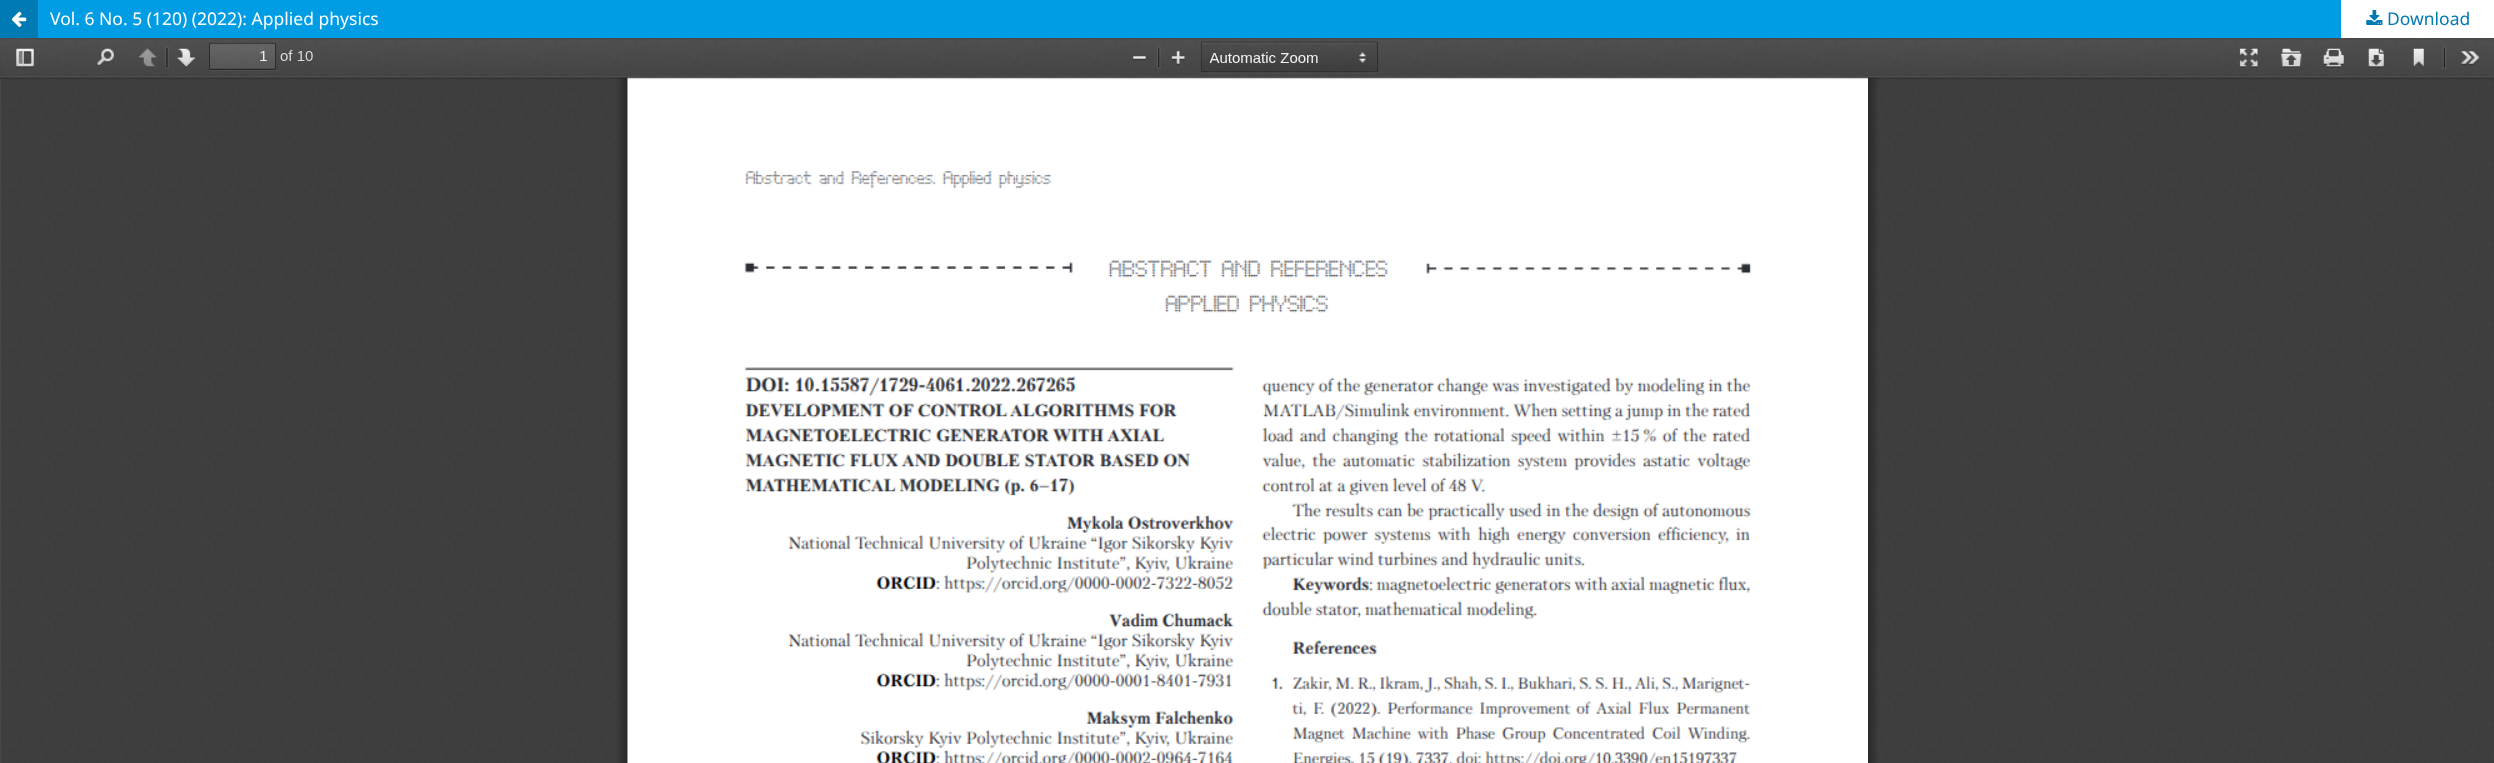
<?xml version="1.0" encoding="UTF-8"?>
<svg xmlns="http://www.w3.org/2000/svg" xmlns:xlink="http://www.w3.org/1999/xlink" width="2494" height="763">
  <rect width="100%" height="100%" fill="#ffffff" />
  <rect x="38" width="2303" height="38" fill="#009de5" />
  <rect width="38" height="38" fill="#007ab2" />
  <image x="11" y="11" width="16" height="16" xlink:href="image1.png" />
  <image x="2366" y="10" width="17" height="15" xlink:href="image2.png" />
  <image x="0" y="38" width="2494" height="725" xlink:href="image3.png" />
  <text x="50" y="25" style="font-family: Noto Sans; font-size: 17.5px; fill: #ffffff">Vol. 6 No. 5 (120) (2022): Applied physics</text>
  <text x="2387" y="25" style="font-family: Noto Sans; font-size: 17.5px; fill: #007ab2">Download</text>
</svg>
